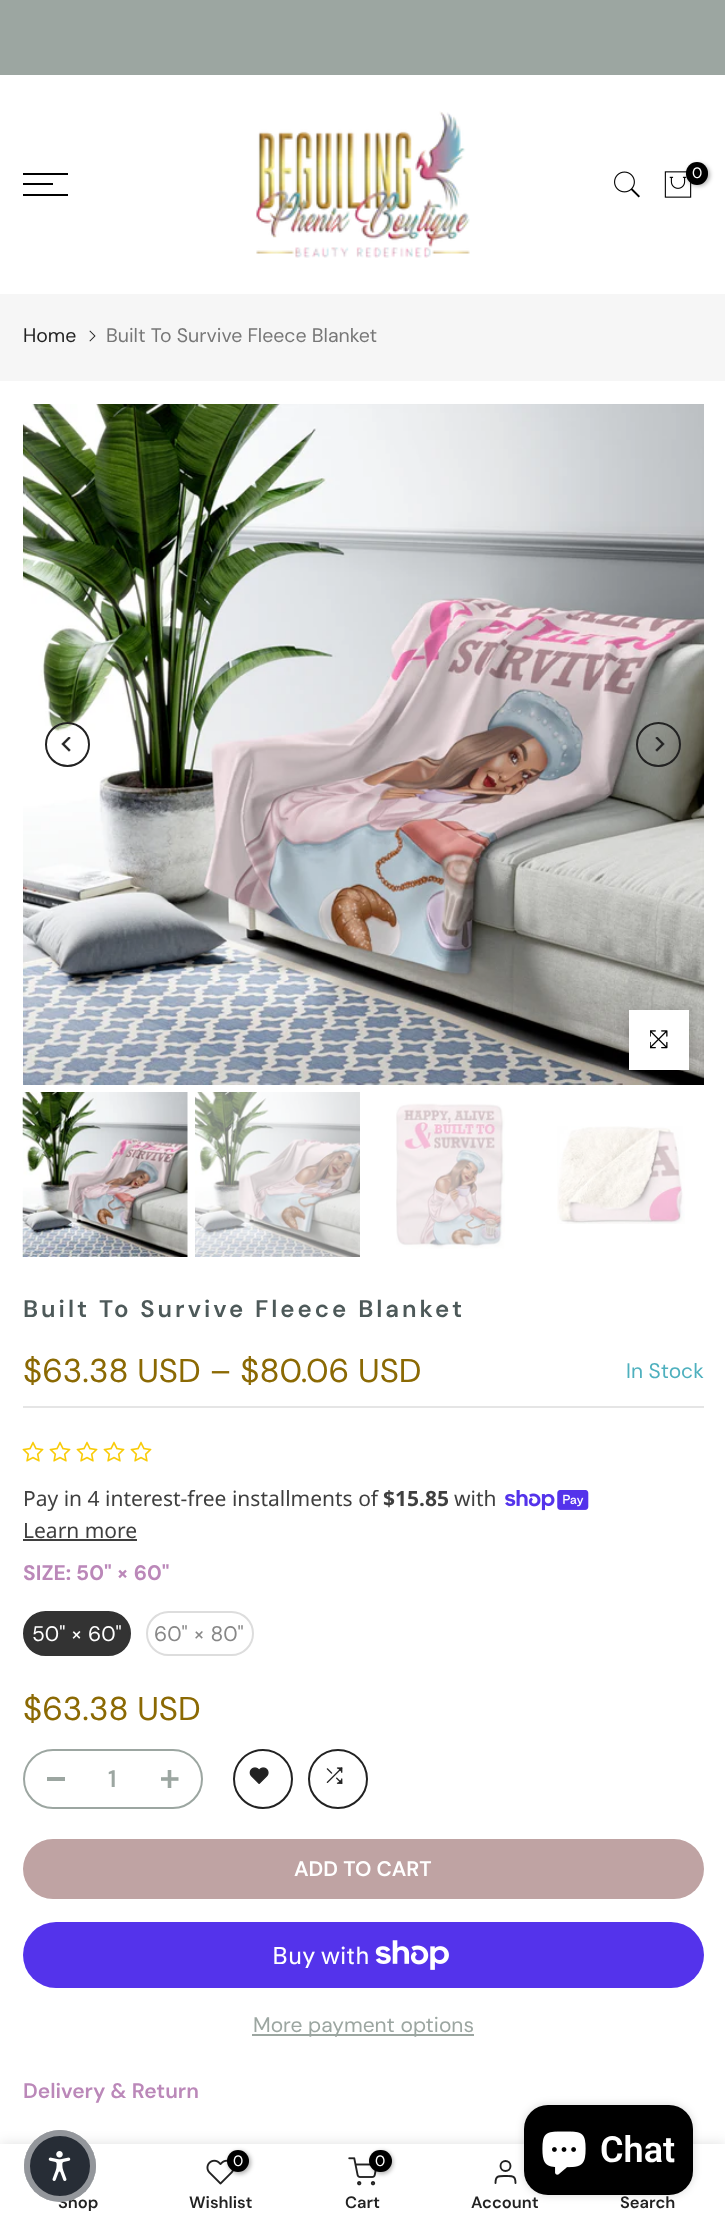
<?xml version="1.0" encoding="UTF-8"?>
<svg xmlns="http://www.w3.org/2000/svg" xmlns:xlink="http://www.w3.org/1999/xlink" width="725" height="2225">
  <defs>
    <clipPath id="clip1"><rect x="23" y="2195" width="112" height="16" /></clipPath>
  </defs>
  <rect width="100%" height="100%" fill="#ffffff" />
  <rect width="725" height="75" fill="#9ca6a1" />
  <rect x="23" y="173" width="45" height="2" fill="#000000" />
  <rect x="23" y="183" width="30" height="2" fill="#000000" />
  <rect x="23" y="194" width="45" height="2" fill="#000000" />
  <image x="256" y="111" width="214" height="147" xlink:href="image1.png" />
  <image x="614" y="171" width="26" height="27" xlink:href="image2.png" />
  <image x="664" y="171" width="28" height="27" xlink:href="image3.png" />
  <rect x="687" y="164" width="23" height="22" rx="11" fill="#000000" fill-opacity="0.3" filter="blur(2px)" />
  <rect x="686" y="162" width="22" height="23" rx="11" fill="#000000" />
  <rect y="294" width="725" height="87" fill="#f6f6f6" />
  <image x="89" y="330" width="7" height="12" xlink:href="image4.png" />
  <image x="23" y="404" width="681" height="681" xlink:href="image5.png" />
  <circle cx="67.5" cy="744.5" r="21.5" fill="none" stroke="#222222" stroke-width="2" />
  <image x="61" y="737" width="10" height="15" xlink:href="image6.png" />
  <circle cx="658.5" cy="744.5" r="21.5" fill="none" stroke="#222222" stroke-width="2" />
  <image x="655" y="737" width="10" height="15" xlink:href="image7.png" />
  <rect x="629" y="1010" width="60" height="60" fill="#000000" fill-opacity="0.09" filter="blur(4px)" />
  <rect x="629" y="1010" width="60" height="60" fill="#ffffff" />
  <image x="650" y="1030" width="18" height="19" xlink:href="image8.png" />
  <image x="22" y="1092" width="166" height="165" xlink:href="image9.png" />
  <image x="195" y="1092" width="165" height="165" xlink:href="image10.png" />
  <image x="396" y="1103" width="109" height="146" xlink:href="image11.png" />
  <image x="557" y="1126" width="128" height="98" xlink:href="image12.png" />
  <rect x="23" y="1406" width="681" height="2" fill="#e5e5e5" />
  <image x="22" y="1441" width="22" height="21" xlink:href="image13.png" />
  <image x="49" y="1441" width="22" height="21" xlink:href="image13.png" />
  <image x="76" y="1441" width="22" height="21" xlink:href="image13.png" />
  <image x="103" y="1441" width="22" height="21" xlink:href="image13.png" />
  <image x="130" y="1441" width="22" height="21" xlink:href="image13.png" />
  <image x="505" y="1490" width="84" height="21" xlink:href="image14.png" />
  <rect x="23" y="1539" width="114" height="2" fill="#3f3f3f" />
  <rect x="24" y="1612" width="106" height="43" rx="21.5" fill="#333333" stroke="#333333" stroke-width="2" />
  <rect x="147" y="1612" width="106" height="43" rx="21.5" fill="none" stroke="#dddddd" stroke-width="2" />
  <rect x="24" y="1750" width="178" height="58" rx="29" fill="none" stroke="#9ca6a1" stroke-width="2" />
  <rect x="47" y="1777" width="18" height="4" fill="#9ca6a1" />
  <image x="161" y="1770" width="18" height="18" xlink:href="image15.png" />
  <circle cx="263" cy="1779" r="29" fill="none" stroke="#222222" stroke-width="2" />
  <image x="249" y="1767" width="20" height="17" xlink:href="image16.png" />
  <circle cx="338" cy="1779" r="29" fill="none" stroke="#222222" stroke-width="2" />
  <image x="326" y="1767" width="17" height="17" xlink:href="image17.png" />
  <rect x="23" y="1839" width="681" height="60" rx="30" fill="#bfa3a3" />
  <rect x="23" y="1922" width="681" height="66" rx="33" fill="#5433eb" />
  <image x="375" y="1940" width="74" height="30" xlink:href="image18.png" />
  <rect x="252" y="2034" width="222" height="2" fill="#9ca6a1" />
  <rect y="2144" width="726" height="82" fill="#000000" fill-opacity="0.12" filter="blur(7px)" />
  <rect y="2144" width="725" height="81" fill="#ffffff" />
  <circle cx="505.5" cy="2166" r="5" fill="none" stroke="#222222" stroke-width="1.9" />
  <path d="M 515.5 2183 c 0 -7.5 -3 -7 -10 -7 c -7 0 -10 -0.5 -10 7" fill="none" stroke="#222222" stroke-width="1.9" stroke-linecap="round" stroke-linejoin="round" />
  <rect x="524" y="2105" width="169" height="90" rx="24" fill="#000000" fill-opacity="0.15" filter="blur(4px)" />
  <rect x="524" y="2105" width="169" height="90" rx="24" fill="#000000" />
  <image x="542" y="2131" width="44" height="44" xlink:href="image20.png" />
  <image x="206" y="2159" width="28" height="26" xlink:href="image21.png" />
  <rect x="228" y="2151" width="23" height="23" rx="11.5" fill="#000000" fill-opacity="0.3" filter="blur(2px)" />
  <circle cx="238" cy="2161" r="11" fill="#000000" />
  <image x="348" y="2157" width="29" height="29" xlink:href="image22.png" />
  <rect x="371" y="2151" width="22" height="23" rx="11" fill="#000000" fill-opacity="0.3" filter="blur(2px)" />
  <rect x="369" y="2150" width="23" height="22" rx="11" fill="#000000" />
  <text x="692" y="178" style="font-family: DM Sans; font-size: 15px; fill: #ffffff">0</text>
  <text x="23" y="342" style="font-family: DM Sans; font-size: 19.5px; fill: #222222">Home</text>
  <text x="106" y="342" style="font-family: DM Sans; font-size: 19.5px; fill: #777777">Built To Survive Fleece Blanket</text>
  <text x="23" y="1317" style="font-family: DM Sans; font-size: 24px; font-weight: 600; letter-spacing: 3px; fill: #4d5959">Built To Survive Fleece Blanket</text>
  <text x="23" y="1382" style="font-family: DM Sans; font-size: 33px; fill: #8b6903">$63.38 USD – $80.06 USD</text>
  <text x="626" y="1378" style="font-family: DM Sans; font-size: 21px; fill: #4eb0be">In Stock</text>
  <text x="23" y="1506" style="font-family: Noto Sans; font-size: 21px; fill: #3f3f3f">Pay in 4 interest-free installments of</text>
  <text x="383" y="1506" style="font-family: Noto Sans; font-size: 21px; font-weight: bold; fill: #3f3f3f">$15.85</text>
  <text x="454" y="1506" style="font-family: Noto Sans; font-size: 21px; fill: #3f3f3f">with</text>
  <text x="23" y="1538" style="font-family: Noto Sans; font-size: 21px; fill: #3f3f3f">Learn more</text>
  <text x="23" y="1580" style="font-family: DM Sans; font-size: 21px; font-weight: bold; fill: #bb88b9">SIZE: 50" × 60"</text>
  <text x="32" y="1641" style="font-family: DM Sans; font-size: 21px; fill: #ffffff">50" × 60"</text>
  <text x="154" y="1641" style="font-family: DM Sans; font-size: 21px; fill: #878787">60" × 80"</text>
  <text x="23" y="1720" style="font-family: DM Sans; font-size: 33px; fill: #8b6903">$63.38 USD</text>
  <text x="108" y="1787" style="font-family: DM Sans; font-size: 24px; font-weight: 600; fill: #9ca6a1">1</text>
  <text x="294" y="1876" style="font-family: DM Sans; font-size: 21px; font-weight: 600; fill: #ffffff">ADD TO CART</text>
  <text x="272" y="1964" style="font-family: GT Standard; font-size: 24px; fill: #ffffff">Buy with</text>
  <text x="253" y="2032" style="font-family: DM Sans; font-size: 21px; fill: #9ca6a1">More payment options</text>
  <text x="23" y="2098" style="font-family: DM Sans; font-size: 21px; font-weight: 600; fill: #bb88b9">Delivery &amp; Return</text>
  <text x="600" y="2162" style="font-family: Roboto; font-size: 36px; font-weight: 600; fill: #ffffff">Chat</text>
  <g clip-path="url(#clip1)">
    <text x="58" y="2208" style="font-family: DM Sans; font-size: 16.5px; font-weight: 600; fill: #222222">Shop</text>
  </g>
  <circle cx="60" cy="2166" r="36" fill="#272d36" />
  <circle cx="60" cy="2166" r="33" fill="none" stroke="#ffffff" stroke-opacity="0.5" stroke-width="6" />
  <image x="48" y="2151" width="23" height="30" xlink:href="image19.png" />
  <text x="233" y="2166" style="font-family: DM Sans; font-size: 15px; fill: #ffffff">0</text>
  <text x="189" y="2208" style="font-family: DM Sans; font-size: 16.5px; font-weight: 600; fill: #222222">Wishlist</text>
  <text x="375" y="2166" style="font-family: DM Sans; font-size: 15px; fill: #ffffff">0</text>
  <text x="345" y="2208" style="font-family: DM Sans; font-size: 16.5px; font-weight: 600; fill: #222222">Cart</text>
  <text x="471" y="2208" style="font-family: DM Sans; font-size: 16.5px; font-weight: 600; fill: #222222">Account</text>
  <text x="620" y="2208" style="font-family: DM Sans; font-size: 16.5px; font-weight: 600; fill: #222222">Search</text>
</svg>
